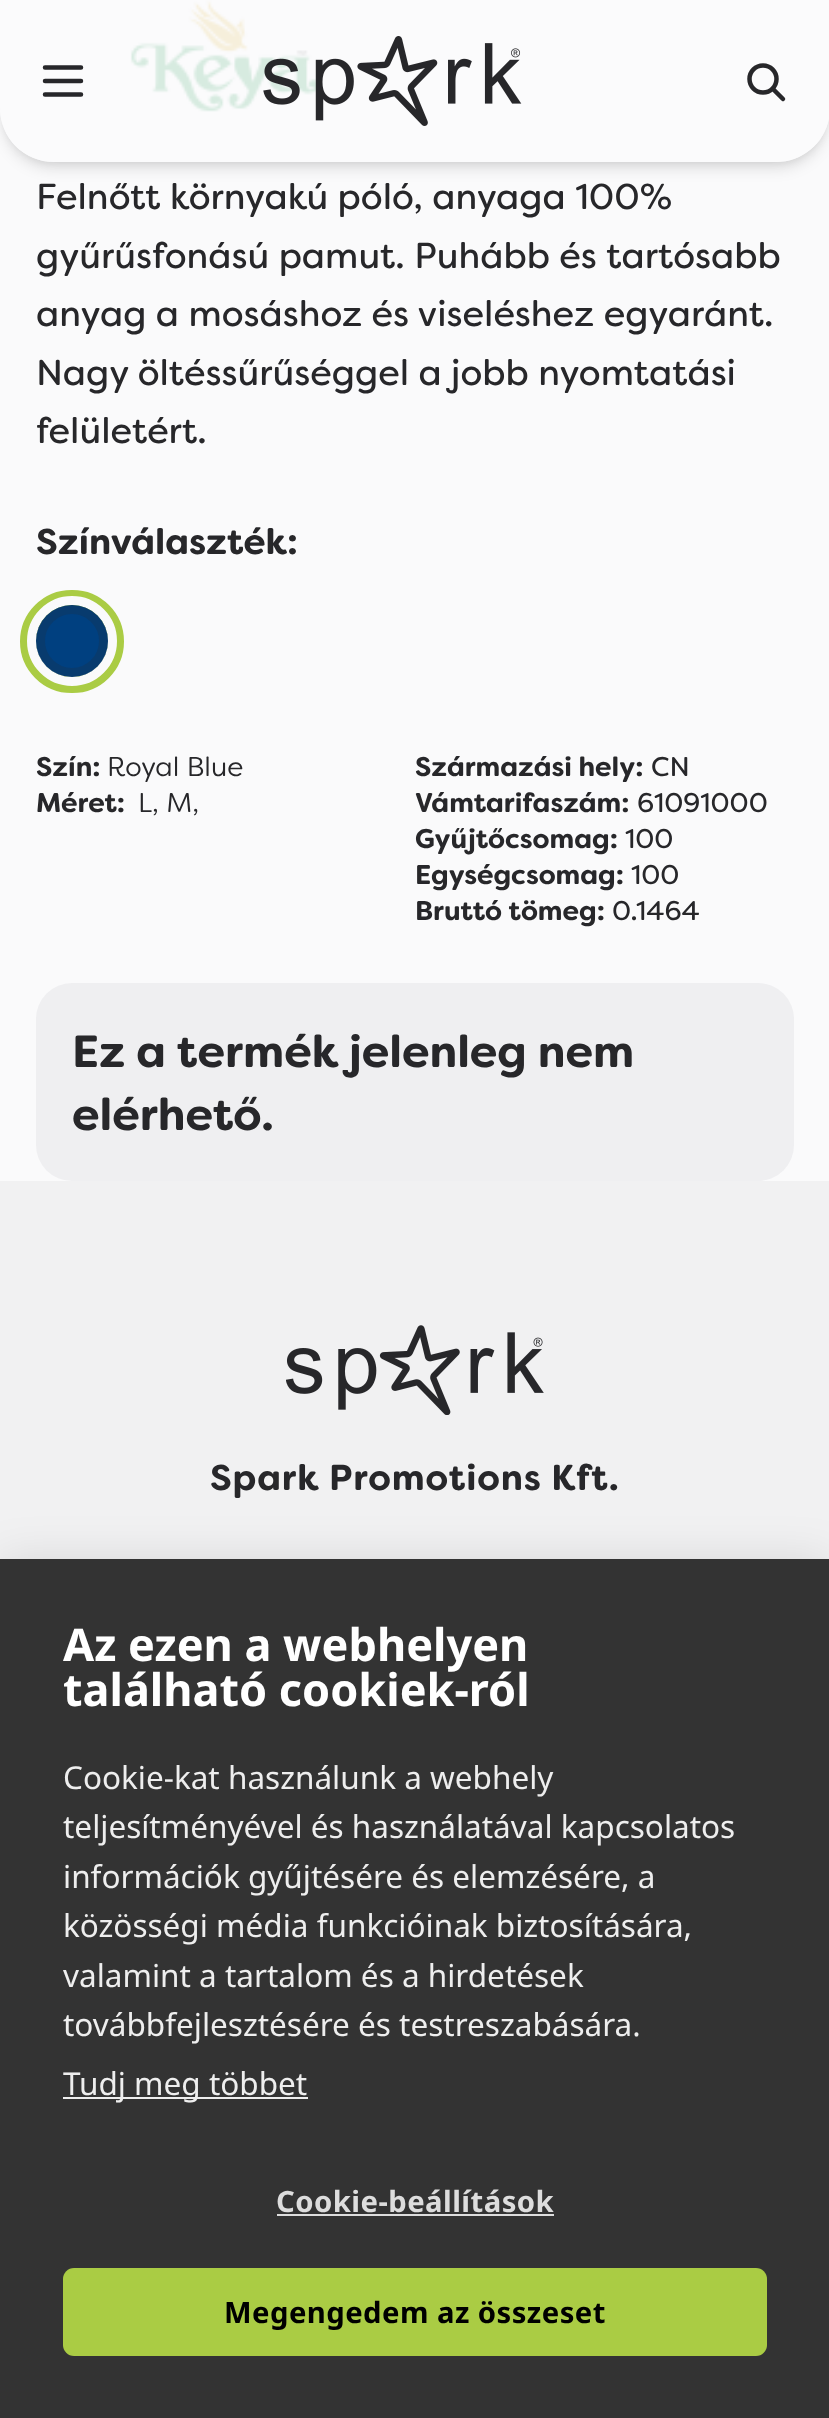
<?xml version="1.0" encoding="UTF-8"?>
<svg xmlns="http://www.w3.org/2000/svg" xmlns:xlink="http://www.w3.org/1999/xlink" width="829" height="2418">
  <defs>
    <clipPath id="clip1"><path d="M 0 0 h 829 v 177 h -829 z m 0 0 h 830 v 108 c 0 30 -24 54 -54 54 h -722 c -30 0 -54 -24 -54 -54 z" clip-rule="evenodd" /></clipPath>
    <clipPath id="clip2"><path d="M 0 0 h 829 v 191 h -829 z m 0 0 h 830 v 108 c 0 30 -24 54 -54 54 h -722 c -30 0 -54 -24 -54 -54 z" clip-rule="evenodd" /></clipPath>
  </defs>
  <rect width="100%" height="100%" fill="#fafafb" />
  <image x="130" y="0" width="186" height="112" xlink:href="image2.png" />
  <g clip-path="url(#clip1)">
    <rect x="5" y="9" width="821" height="153" rx="50" fill="#000000" fill-opacity="0.1" filter="blur(4.5px)" />
  </g>
  <g clip-path="url(#clip2)">
    <rect x="2" y="11" width="826" height="158" rx="52" fill="#000000" fill-opacity="0.1" filter="blur(7px)" />
  </g>
  <path d="M 0 0 h 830 v 108 c 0 30 -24 54 -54 54 h -722 c -30 0 -54 -24 -54 -54 z" fill="#fafafb" fill-opacity="0.85" />
  <path d="M 45 67.5 h 36 m -36 13.5 h 36 m -36 13.5 h 36" fill="none" stroke="#27272a" stroke-width="4.5" stroke-linecap="round" stroke-linejoin="round" />
  <image x="263" y="36" width="259" height="90" xlink:href="image1.png" />
  <circle cx="763" cy="79" r="13.5" fill="none" stroke="#27272a" stroke-width="4.5" />
  <path d="M 774 90 l 9 9" fill="none" stroke="#27272a" stroke-width="4.5" stroke-linecap="round" stroke-linejoin="round" />
  <rect x="28" y="598" width="88" height="87" rx="43.5" fill="none" stroke="#aacc44" stroke-width="16" />
  <circle cx="72" cy="641" r="40.5" fill="none" stroke="#fafafb" stroke-width="9" />
  <circle cx="72" cy="641" r="36" fill="#004080" />
  <circle cx="72" cy="641" r="31.5" fill="none" stroke="#27272a" stroke-opacity="0.2" stroke-width="9" />
  <rect x="36" y="983" width="758" height="198" rx="36" fill="#efeff1" />
  <rect y="1181" width="829" height="378" fill="#f1f1f2" />
  <image x="286" y="1325" width="258" height="90" xlink:href="image3.png" />
  <rect y="1559" width="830" height="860" fill="#000000" fill-opacity="0.1" filter="blur(22.5px)" />
  <rect y="1559" width="829" height="859" fill="#333333" />
  <rect x="63" y="2097" width="245" height="2" fill="#eeeeee" />
  <rect x="277" y="2214" width="277" height="2" fill="#dddddd" />
  <rect x="63" y="2268" width="704" height="88" rx="11" fill="#aacc44" />
  <text x="36" y="209" style="font-family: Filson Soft; font-size: 36px; fill: #27272a">Felnőtt környakú póló, anyaga 100%</text>
  <text x="36" y="268" style="font-family: Filson Soft; font-size: 36px; fill: #27272a">gyűrűsfonású pamut. Puhább és tartósabb</text>
  <text x="36" y="326" style="font-family: Filson Soft; font-size: 36px; fill: #27272a">anyag a mosáshoz és viseléshez egyaránt.</text>
  <text x="36" y="385" style="font-family: Filson Soft; font-size: 36px; fill: #27272a">Nagy öltéssűrűséggel a jobb nyomtatási</text>
  <text x="36" y="443" style="font-family: Filson Soft; font-size: 36px; fill: #27272a">felületért.</text>
  <text x="36" y="554" style="font-family: Filson Soft; font-size: 36px; font-weight: bold; fill: #27272a">Színválaszték:</text>
  <text x="36" y="776" style="font-family: Filson Soft; font-size: 27px; font-weight: bold; fill: #27272a">Szín:</text>
  <text x="107" y="776" style="font-family: 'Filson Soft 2'; font-size: 27px; fill: #27272a">Royal Blue</text>
  <text x="36" y="812" style="font-family: Filson Soft; font-size: 27px; font-weight: bold; fill: #27272a">Méret:</text>
  <text x="138" y="812" style="font-family: 'Filson Soft 2'; font-size: 27px; fill: #27272a">L, M,</text>
  <text x="415" y="776" style="font-family: Filson Soft; font-size: 27px; font-weight: bold; fill: #27272a">Származási hely:</text>
  <text x="651" y="776" style="font-family: Filson Soft; font-size: 27px; fill: #27272a">CN</text>
  <text x="415" y="812" style="font-family: Filson Soft; font-size: 27px; font-weight: bold; fill: #27272a">Vámtarifaszám:</text>
  <text x="637" y="812" style="font-family: Filson Soft; font-size: 27px; fill: #27272a">61091000</text>
  <text x="415" y="848" style="font-family: Filson Soft; font-size: 27px; font-weight: bold; fill: #27272a">Gyűjtőcsomag:</text>
  <text x="625" y="848" style="font-family: Filson Soft; font-size: 27px; fill: #27272a">100</text>
  <text x="415" y="884" style="font-family: Filson Soft; font-size: 27px; font-weight: bold; fill: #27272a">Egységcsomag:</text>
  <text x="631" y="884" style="font-family: Filson Soft; font-size: 27px; fill: #27272a">100</text>
  <text x="415" y="920" style="font-family: Filson Soft; font-size: 27px; font-weight: bold; fill: #27272a">Bruttó tömeg:</text>
  <text x="612" y="920" style="font-family: Filson Soft; font-size: 27px; fill: #27272a">0.1464</text>
  <text x="72" y="1067" style="font-family: Filson Soft; font-size: 45px; font-weight: bold; fill: #27272a">Ez a termék jelenleg nem</text>
  <text x="72" y="1130" style="font-family: Filson Soft; font-size: 45px; font-weight: bold; fill: #27272a">elérhető.</text>
  <text x="210" y="1490" style="font-family: Filson Soft; font-size: 36px; font-weight: bold; letter-spacing: 0.9px; fill: #27272a">Spark Promotions Kft.</text>
  <text x="63" y="1661" style="font-family: Noto Sans; font-size: 45px; font-weight: bold; fill: #ffffff">Az ezen a webhelyen</text>
  <text x="63" y="1706" style="font-family: Noto Sans; font-size: 45px; font-weight: bold; fill: #ffffff">található cookiek-ról</text>
  <text x="63" y="1789" style="font-family: Noto Sans; font-size: 31.5px; fill: #eeeeee">Cookie-kat használunk a webhely</text>
  <text x="63" y="1838" style="font-family: Noto Sans; font-size: 31.5px; fill: #eeeeee">teljesítményével és használatával kapcsolatos</text>
  <text x="63" y="1888" style="font-family: Noto Sans; font-size: 31.5px; fill: #eeeeee">információk gyűjtésére és elemzésére, a</text>
  <text x="63" y="1937" style="font-family: Noto Sans; font-size: 31.5px; fill: #eeeeee">közösségi média funkcióinak biztosítására,</text>
  <text x="63" y="1987" style="font-family: Noto Sans; font-size: 31.5px; fill: #eeeeee">valamint a tartalom és a hirdetések</text>
  <text x="63" y="2036" style="font-family: Noto Sans; font-size: 31.5px; fill: #eeeeee">továbbfejlesztésére és testreszabására.</text>
  <text x="63" y="2095" style="font-family: Noto Sans; font-size: 31.5px; fill: #eeeeee">Tudj meg többet</text>
  <text x="276" y="2212" style="font-family: Noto Sans; font-size: 29.25px; font-weight: bold; letter-spacing: 0.45px; fill: #dddddd">Cookie-beállítások</text>
  <text x="224" y="2323" style="font-family: Noto Sans; font-size: 29.25px; font-weight: bold; letter-spacing: 0.45px; fill: #000000">Megengedem az összeset</text>
</svg>
